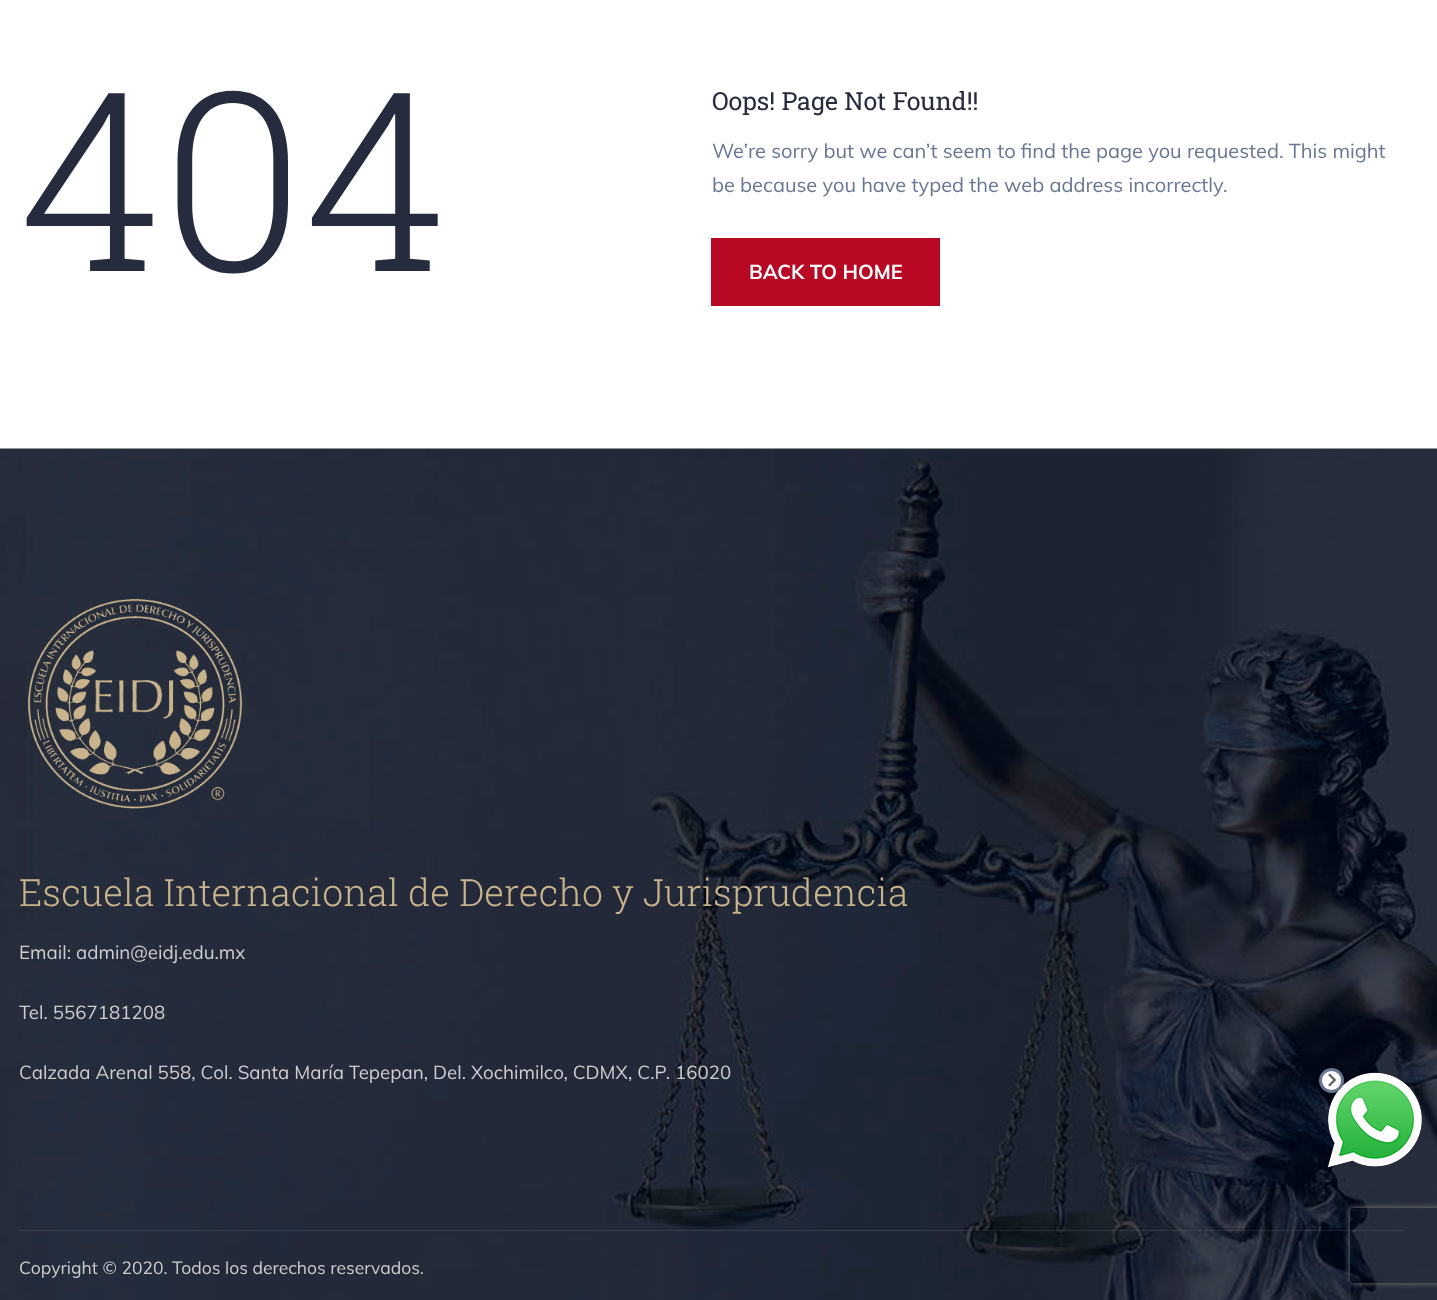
<?xml version="1.0" encoding="UTF-8"?>
<svg xmlns="http://www.w3.org/2000/svg" xmlns:xlink="http://www.w3.org/1999/xlink" width="1437" height="1300">
  <defs>
    <clipPath id="clip1"><path d="M 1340 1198 h 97 v 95 h -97 z m 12.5 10 h 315 c 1.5 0 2.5 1 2.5 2.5 v 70 c 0 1.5 -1 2.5 -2.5 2.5 h -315 c -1.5 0 -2.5 -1 -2.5 -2.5 v -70 c 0 -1.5 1 -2.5 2.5 -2.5 z" clip-rule="evenodd" /></clipPath>
  </defs>
  <rect width="100%" height="100%" fill="#ffffff" />
  <rect x="711" y="238" width="229" height="68" fill="#b80823" />
  <image x="0" y="448" width="1437" height="852" xlink:href="image1.png" />
  <image x="28" y="599" width="214" height="210" xlink:href="image2.png" />
  <rect x="19" y="1230" width="1386" height="1" fill="#ffffff" fill-opacity="0.1" />
  <image x="1327" y="1072" width="95" height="96" xlink:href="image4.png" />
  <circle cx="1331.5" cy="1080.5" r="11" fill="#ffffff" stroke="#687693" stroke-width="3" />
  <image x="1328" y="1073" width="8" height="14" xlink:href="image3.png" />
  <g clip-path="url(#clip1)">
    <rect x="1350" y="1208" width="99" height="75" rx="2.5" fill="#808080" filter="blur(3px)" />
  </g>
  <text x="19" y="271" style="font-family: Roboto Slab; font-size: 250px; font-weight: 300; fill: #262b3e">404</text>
  <text x="712" y="110" style="font-family: Roboto Slab; font-size: 25px; fill: #262b3e">Oops! Page Not Found!!</text>
  <text x="712" y="158" style="font-family: Muli; font-size: 20px; fill: #687693">We’re sorry but we can’t seem to find the page you requested. This might</text>
  <text x="712" y="192" style="font-family: Muli; font-size: 20px; fill: #687693">be because you have typed the web address incorrectly.</text>
  <text x="749" y="279" style="font-family: Muli; font-size: 20px; font-weight: bold; fill: #ffffff">BACK TO HOME</text>
  <text x="19" y="906" style="font-family: Roboto Slab; font-size: 37.5px; font-weight: 300; fill: #c8b38c">Escuela Internacional de Derecho y Jurisprudencia</text>
  <text x="19" y="959" style="font-family: Muli; font-size: 18.75px; fill: #cdced0">Email: admin@eidj.edu.mx</text>
  <text x="19" y="1019" style="font-family: Muli; font-size: 18.75px; fill: #cdced0">Tel. 5567181208</text>
  <text x="19" y="1079" style="font-family: Muli; font-size: 18.75px; fill: #cdced0">Calzada Arenal 558, Col. Santa María Tepepan, Del. Xochimilco, CDMX, C.P. 16020</text>
  <text x="19" y="1274" style="font-family: Muli; font-size: 17.5px; fill: #cdced0">Copyright © 2020. Todos los derechos reservados.</text>
</svg>
